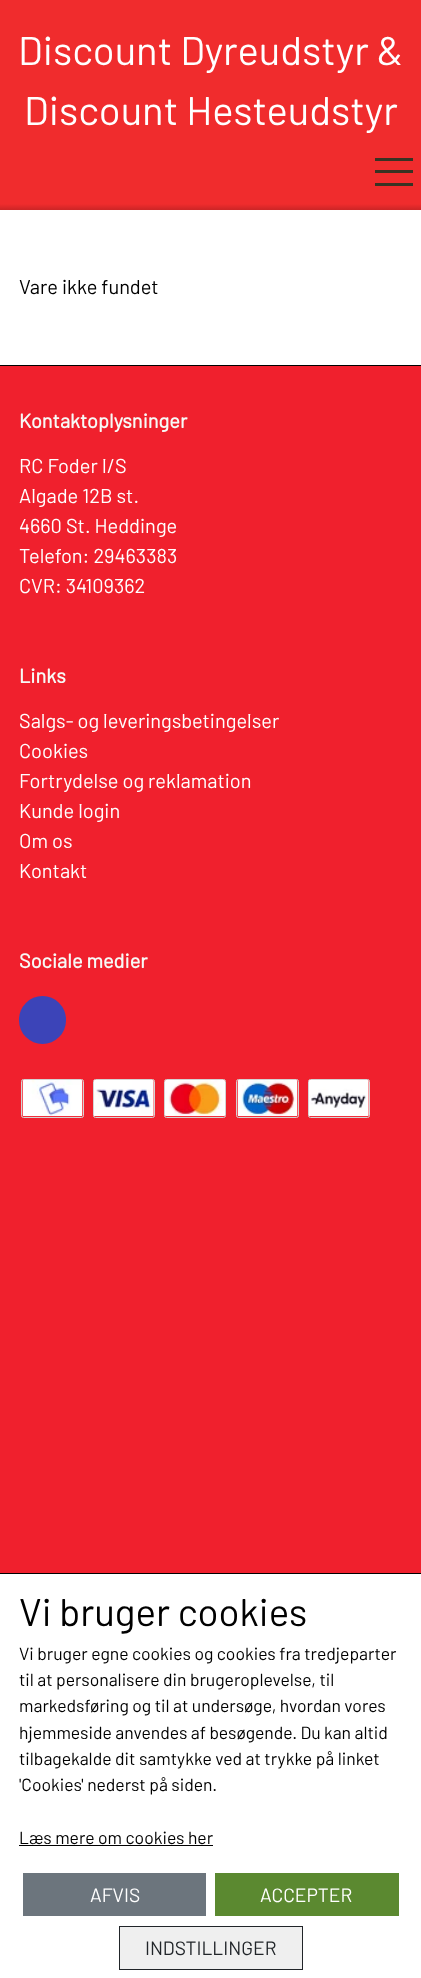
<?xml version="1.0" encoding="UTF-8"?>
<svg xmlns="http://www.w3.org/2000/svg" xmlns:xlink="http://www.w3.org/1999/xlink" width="421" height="1978">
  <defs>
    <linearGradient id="g1" gradientUnits="userSpaceOnUse" x1="211" y1="210" x2="211" y2="204"><stop offset="0" stop-color="#cc2526" /><stop offset="1" stop-color="#f02c2d" /></linearGradient>
  </defs>
  <rect width="100%" height="100%" fill="#f0202d" />
  <rect width="421" height="204" fill="#f02c2d" />
  <rect x="375" y="158" width="38" height="3" fill="#383323" />
  <rect x="375" y="170" width="38" height="3" fill="#383323" />
  <rect x="375" y="183" width="38" height="3" fill="#383323" />
  <rect y="204" width="421" height="6" fill="url(#g1)" />
  <rect y="210" width="421" height="155" fill="#ffffff" />
  <rect y="365" width="421" height="1" fill="#000000" />
  <rect x="19" y="996" width="47" height="48" rx="23.5" fill="#3c44b8" />
  <rect x="21.5" y="1079.5" width="62" height="38" rx="2" fill="none" stroke="#d3d3d3" />
  <rect x="93.5" y="1079.5" width="61" height="38" rx="2" fill="none" stroke="#d3d3d3" />
  <rect x="164.5" y="1079.5" width="61" height="38" rx="2" fill="none" stroke="#d3d3d3" />
  <rect x="236.5" y="1079.5" width="62" height="38" rx="2" fill="none" stroke="#d3d3d3" />
  <rect x="308.5" y="1079.5" width="61" height="38" rx="2" fill="none" stroke="#d3d3d3" />
  <image x="22" y="1080" width="61" height="37" xlink:href="image1.png" />
  <image x="93" y="1080" width="61" height="37" xlink:href="image2.png" />
  <image x="165" y="1080" width="60" height="37" xlink:href="image3.png" />
  <image x="237" y="1080" width="61" height="37" xlink:href="image4.png" />
  <image x="308" y="1080" width="61" height="37" xlink:href="image5.png" />
  <rect y="1574" width="421" height="404" fill="#ffffff" />
  <rect y="1573" width="421" height="1" fill="#000000" />
  <rect x="19" y="1845" width="194" height="1" fill="#000000" />
  <rect x="23" y="1873" width="183" height="43" fill="#6c757d" />
  <rect x="215" y="1873" width="184" height="43" fill="#5b8930" />
  <rect x="119.5" y="1926.5" width="183" height="43" fill="#efefef" stroke="#212529" />
  <text x="18" y="65" style="font-family: Barlow; font-size: 40px; fill: #ffffff">Discount Dyreudstyr &amp;</text>
  <text x="24" y="125" style="font-family: Barlow; font-size: 40px; fill: #ffffff">Discount Hesteudstyr</text>
  <text x="19" y="294" style="font-family: Barlow; font-size: 20px; fill: #000000">Vare ikke fundet</text>
  <text x="19" y="428" style="font-family: Barlow; font-size: 20px; font-weight: bold; fill: #f7f9f6">Kontaktoplysninger</text>
  <text x="19" y="473" style="font-family: Barlow; font-size: 20px; fill: #ffffff">RC Foder I/S</text>
  <text x="19" y="503" style="font-family: Barlow; font-size: 20px; fill: #ffffff">Algade 12B st.</text>
  <text x="19" y="533" style="font-family: Barlow; font-size: 20px; fill: #ffffff">4660 St. Heddinge</text>
  <text x="19" y="563" style="font-family: Barlow; font-size: 20px; fill: #ffffff">Telefon: 29463383</text>
  <text x="19" y="593" style="font-family: Barlow; font-size: 20px; fill: #ffffff">CVR: 34109362</text>
  <text x="19" y="683" style="font-family: Barlow; font-size: 20px; font-weight: bold; fill: #f7f9f6">Links</text>
  <text x="19" y="728" style="font-family: Barlow; font-size: 20px; fill: #ffffff">Salgs- og leveringsbetingelser</text>
  <text x="19" y="758" style="font-family: Barlow; font-size: 20px; fill: #ffffff">Cookies</text>
  <text x="19" y="788" style="font-family: Barlow; font-size: 20px; fill: #ffffff">Fortrydelse og reklamation</text>
  <text x="19" y="818" style="font-family: Barlow; font-size: 20px; fill: #ffffff">Kunde login</text>
  <text x="19" y="848" style="font-family: Barlow; font-size: 20px; fill: #ffffff">Om os</text>
  <text x="19" y="878" style="font-family: Barlow; font-size: 20px; fill: #ffffff">Kontakt</text>
  <text x="19" y="968" style="font-family: Barlow; font-size: 20px; font-weight: bold; fill: #f7f9f6">Sociale medier</text>
  <text x="19" y="1626" style="font-family: Barlow; font-size: 38.5px; fill: #000000">Vi bruger cookies</text>
  <text x="19" y="1660" style="font-family: Barlow; font-size: 17.5px; fill: #000000">Vi bruger egne cookies og cookies fra tredjeparter</text>
  <text x="19" y="1686" style="font-family: Barlow; font-size: 17.5px; fill: #000000">til at personalisere din brugeroplevelse, til</text>
  <text x="19" y="1712" style="font-family: Barlow; font-size: 17.5px; fill: #000000">markedsføring og til at undersøge, hvordan vores</text>
  <text x="19" y="1739" style="font-family: Barlow; font-size: 17.5px; fill: #000000">hjemmeside anvendes af besøgende. Du kan altid</text>
  <text x="19" y="1765" style="font-family: Barlow; font-size: 17.5px; fill: #000000">tilbagekalde dit samtykke ved at trykke på linket</text>
  <text x="19" y="1791" style="font-family: Barlow; font-size: 17.5px; fill: #000000">'Cookies' nederst på siden.</text>
  <text x="19" y="1844" style="font-family: Barlow; font-size: 17.5px; fill: #000000">Læs mere om cookies her</text>
  <text x="90" y="1902" style="font-family: Barlow; font-size: 19.25px; fill: #ffffff">AFVIS</text>
  <text x="260" y="1902" style="font-family: Barlow; font-size: 19.25px; fill: #ffffff">ACCEPTER</text>
  <text x="145" y="1955" style="font-family: Barlow; font-size: 19.25px; fill: #212529">INDSTILLINGER</text>
</svg>
